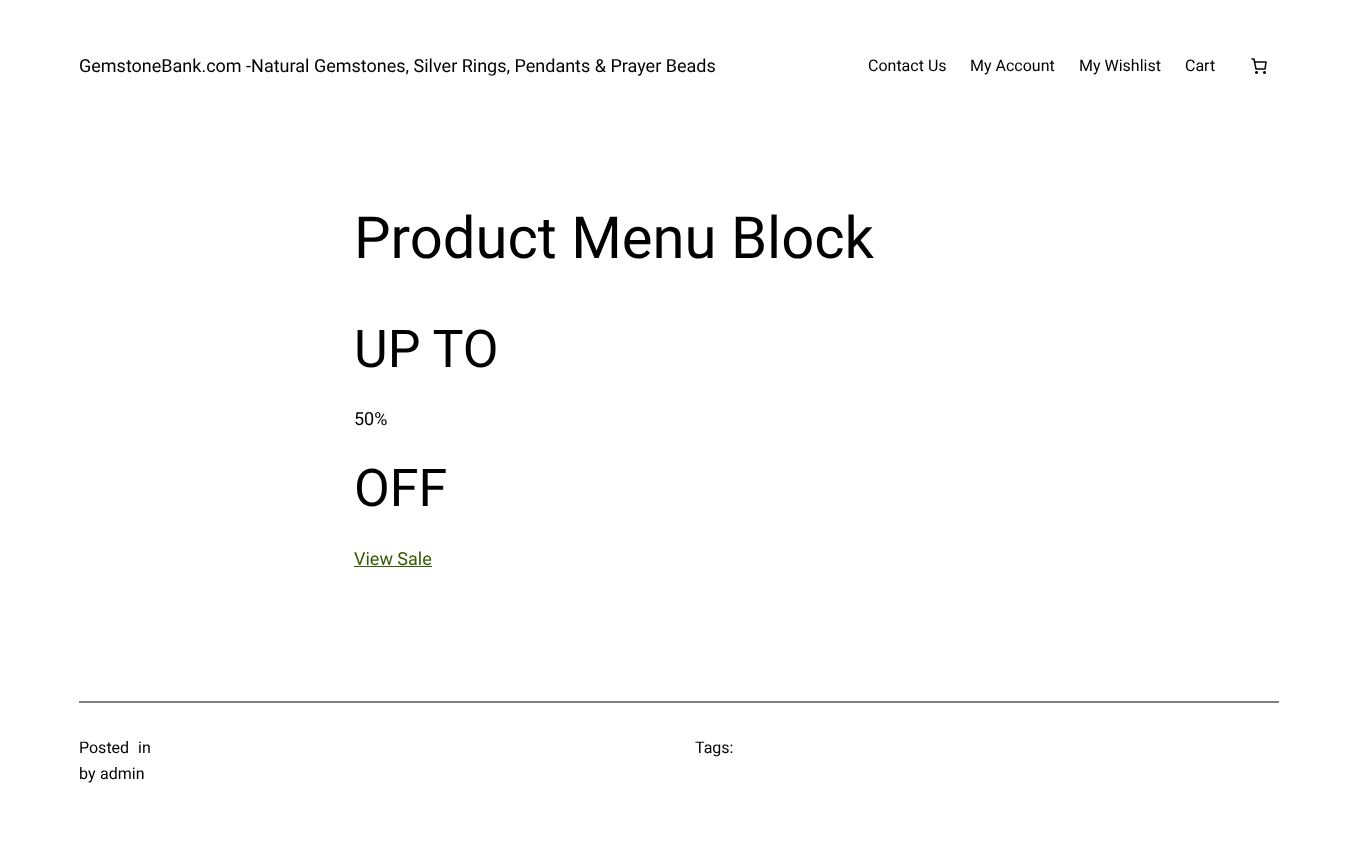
<?xml version="1.0" encoding="UTF-8"?>
<svg xmlns="http://www.w3.org/2000/svg" xmlns:xlink="http://www.w3.org/1999/xlink" width="1358" height="858">
  <rect width="100%" height="100%" fill="#ffffff" />
  <image x="1251" y="58" width="16" height="16" xlink:href="image1.png" />
  <rect x="354" y="566" width="78" height="1" fill="#345c00" />
  <rect x="79" y="701" width="1200" height="2" fill="#808080" />
  <text x="79" y="72" style="font-family: Roboto; font-size: 18px; fill: #000000">GemstoneBank.com -Natural Gemstones, Silver Rings, Pendants &amp; Prayer Beads</text>
  <text x="868" y="71" style="font-family: Roboto; font-size: 16px; fill: #000000">Contact Us</text>
  <text x="970" y="71" style="font-family: Roboto; font-size: 16px; fill: #000000">My Account</text>
  <text x="1079" y="71" style="font-family: Roboto; font-size: 16px; fill: #000000">My Wishlist</text>
  <text x="1185" y="71" style="font-family: Roboto; font-size: 16px; fill: #000000">Cart</text>
  <text x="354" y="258" style="font-family: Roboto; font-size: 58px; fill: #000000">Product Menu Block</text>
  <text x="354" y="367" style="font-family: Roboto; font-size: 52px; fill: #000000">UP TO</text>
  <text x="354" y="425" style="font-family: Roboto; font-size: 18px; fill: #000000">50%</text>
  <text x="354" y="506" style="font-family: Roboto; font-size: 52px; fill: #000000">OFF</text>
  <text x="354" y="565" style="font-family: Roboto; font-size: 18px; fill: #345c00">View Sale</text>
  <text x="79" y="753" style="font-family: Roboto; font-size: 16px; fill: #000000">Posted</text>
  <text x="138" y="753" style="font-family: Roboto; font-size: 16px; fill: #000000">in</text>
  <text x="79" y="779" style="font-family: Roboto; font-size: 16px; fill: #000000">by</text>
  <text x="100" y="779" style="font-family: Roboto; font-size: 16px; fill: #000000">admin</text>
  <text x="695" y="753" style="font-family: Roboto; font-size: 16px; fill: #000000">Tags:</text>
</svg>
